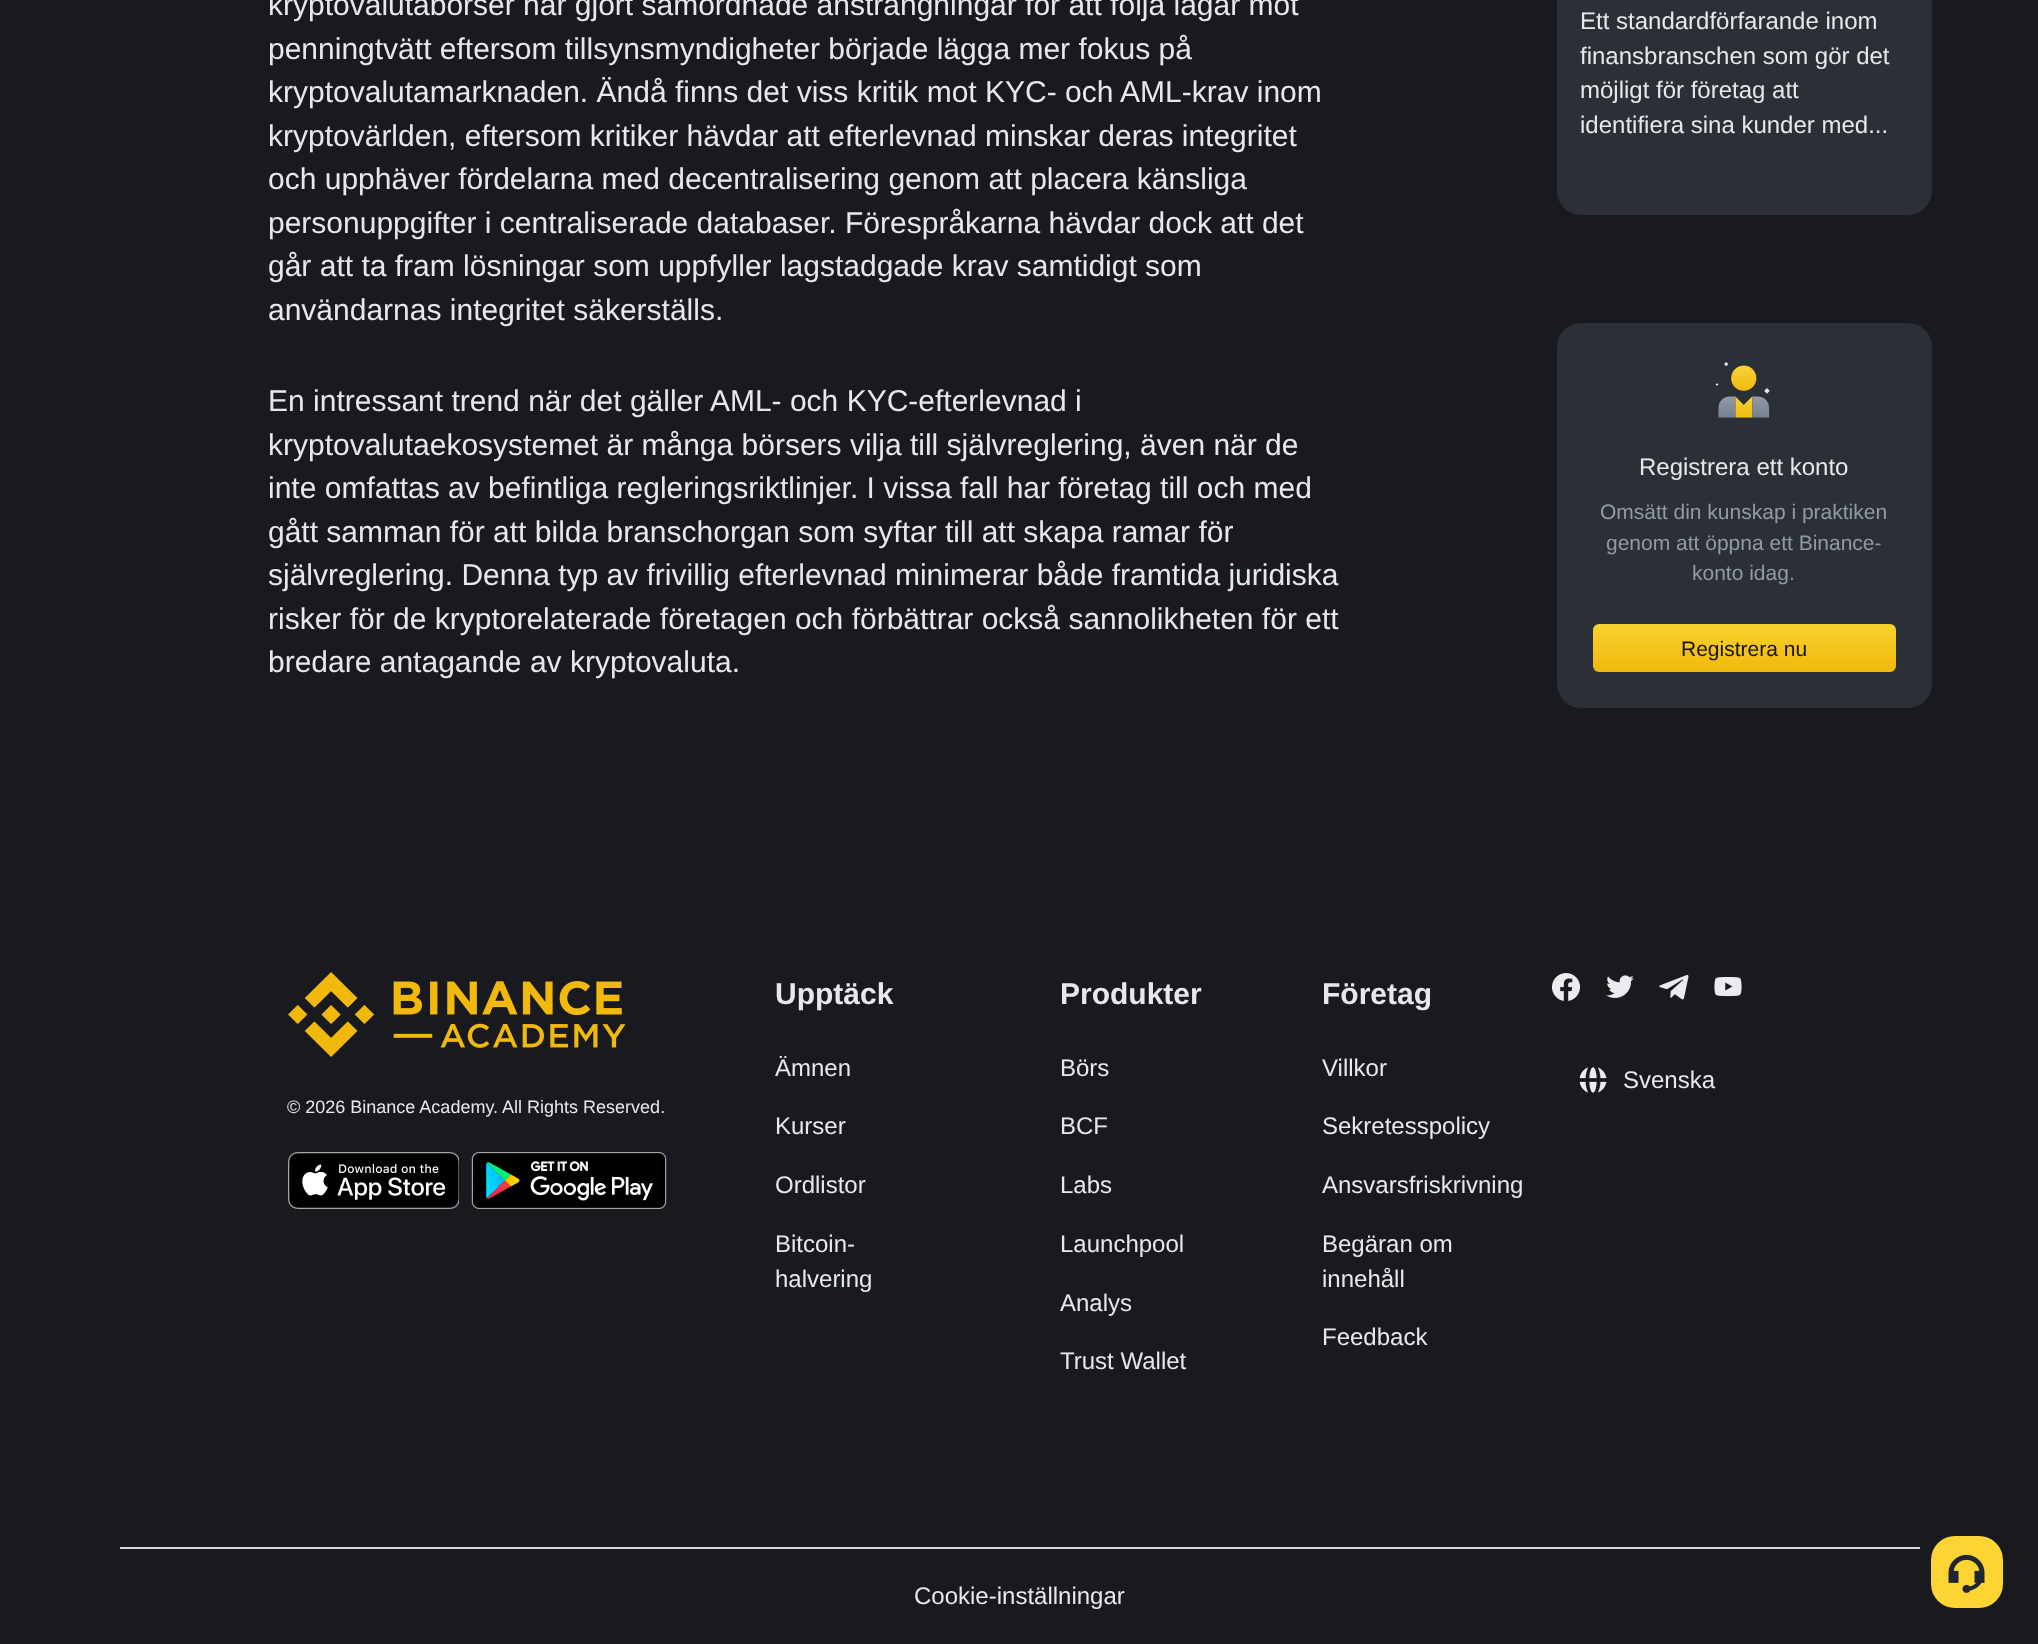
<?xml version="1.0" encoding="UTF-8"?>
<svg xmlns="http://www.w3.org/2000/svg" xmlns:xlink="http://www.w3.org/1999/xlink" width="2038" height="1644">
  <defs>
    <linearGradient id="g1" gradientUnits="userSpaceOnUse" x1="1745" y1="624" x2="1745" y2="672"><stop offset="0" stop-color="#f8d12f" /><stop offset="1" stop-color="#f0b90b" /></linearGradient>
  </defs>
  <rect width="100%" height="100%" fill="#181a20" />
  <rect x="1557" y="-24" width="375" height="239" rx="24" fill="#2b2f36" />
  <rect x="1557" y="323" width="375" height="385" rx="24" fill="#2b2f36" />
  <image x="1715" y="362" width="55" height="56" xlink:href="image1.png" />
  <rect x="1593" y="624" width="303" height="48" rx="6" fill="url(#g1)" />
  <image x="288" y="972" width="338" height="85" xlink:href="image2.png" />
  <image x="1552" y="973" width="29" height="28" xlink:href="image3.png" />
  <image x="1606" y="975" width="28" height="23" xlink:href="image4.png" />
  <image x="1659" y="975" width="30" height="25" xlink:href="image5.png" />
  <image x="1714" y="977" width="28" height="20" xlink:href="image6.png" />
  <image x="1579" y="1067" width="28" height="26" xlink:href="image7.png" />
  <image x="288" y="1152" width="171" height="57" xlink:href="image8.png" />
  <image x="471" y="1152" width="196" height="57" xlink:href="image9.png" />
  <rect x="120" y="1547" width="1800" height="2" fill="#d9d9d9" />
  <rect x="1931" y="1536" width="72" height="72" rx="24" fill="#fcd535" />
  <image x="1948" y="1554" width="37" height="39" xlink:href="image10.png" />
  <text x="268" y="15" style="font-family: Liberation Sans; font-size: 30px; fill: #e6e8ea">kryptovalutabörser har gjort samordnade ansträngningar för att följa lagar mot</text>
  <text x="268" y="59" style="font-family: Liberation Sans; font-size: 30px; fill: #e6e8ea">penningtvätt eftersom tillsynsmyndigheter började lägga mer fokus på</text>
  <text x="268" y="102" style="font-family: Liberation Sans; font-size: 30px; fill: #e6e8ea">kryptovalutamarknaden. Ändå finns det viss kritik mot KYC- och AML-krav inom</text>
  <text x="268" y="146" style="font-family: Liberation Sans; font-size: 30px; fill: #e6e8ea">kryptovärlden, eftersom kritiker hävdar att efterlevnad minskar deras integritet</text>
  <text x="268" y="189" style="font-family: Liberation Sans; font-size: 30px; fill: #e6e8ea">och upphäver fördelarna med decentralisering genom att placera känsliga</text>
  <text x="268" y="233" style="font-family: Liberation Sans; font-size: 30px; fill: #e6e8ea">personuppgifter i centraliserade databaser. Förespråkarna hävdar dock att det</text>
  <text x="268" y="276" style="font-family: Liberation Sans; font-size: 30px; fill: #e6e8ea">går att ta fram lösningar som uppfyller lagstadgade krav samtidigt som</text>
  <text x="268" y="320" style="font-family: Liberation Sans; font-size: 30px; fill: #e6e8ea">användarnas integritet säkerställs.</text>
  <text x="268" y="411" style="font-family: Liberation Sans; font-size: 30px; fill: #e6e8ea">En intressant trend när det gäller AML- och KYC-efterlevnad i</text>
  <text x="268" y="455" style="font-family: Liberation Sans; font-size: 30px; fill: #e6e8ea">kryptovalutaekosystemet är många börsers vilja till självreglering, även när de</text>
  <text x="268" y="498" style="font-family: Liberation Sans; font-size: 30px; fill: #e6e8ea">inte omfattas av befintliga regleringsriktlinjer. I vissa fall har företag till och med</text>
  <text x="268" y="542" style="font-family: Liberation Sans; font-size: 30px; fill: #e6e8ea">gått samman för att bilda branschorgan som syftar till att skapa ramar för</text>
  <text x="268" y="585" style="font-family: Liberation Sans; font-size: 30px; fill: #e6e8ea">självreglering. Denna typ av frivillig efterlevnad minimerar både framtida juridiska</text>
  <text x="268" y="629" style="font-family: Liberation Sans; font-size: 30px; fill: #e6e8ea">risker för de kryptorelaterade företagen och förbättrar också sannolikheten för ett</text>
  <text x="268" y="672" style="font-family: Liberation Sans; font-size: 30px; fill: #e6e8ea">bredare antagande av kryptovaluta.</text>
  <text x="1580" y="29" style="font-family: Liberation Sans; font-size: 24px; fill: #e6e8ea">Ett standardförfarande inom</text>
  <text x="1580" y="64" style="font-family: Liberation Sans; font-size: 24px; fill: #e6e8ea">finansbranschen som gör det</text>
  <text x="1580" y="98" style="font-family: Liberation Sans; font-size: 24px; fill: #e6e8ea">möjligt för företag att</text>
  <text x="1580" y="133" style="font-family: Liberation Sans; font-size: 24px; fill: #e6e8ea">identifiera sina kunder med...</text>
  <text x="1639" y="475" style="font-family: Liberation Sans; font-size: 24px; fill: #e6e8ea">Registrera ett konto</text>
  <text x="1600" y="519" style="font-family: Liberation Sans; font-size: 21px; fill: #929aa5">Omsätt din kunskap i praktiken</text>
  <text x="1606" y="550" style="font-family: Liberation Sans; font-size: 21px; fill: #929aa5">genom att öppna ett Binance-</text>
  <text x="1692" y="580" style="font-family: Liberation Sans; font-size: 21px; fill: #929aa5">konto idag.</text>
  <text x="1681" y="656" style="font-family: Liberation Sans; font-size: 21px; fill: #14151a">Registrera nu</text>
  <text x="775" y="1004" style="font-family: Liberation Sans; font-size: 30px; font-weight: bold; fill: #e6e8ea">Upptäck</text>
  <text x="775" y="1076" style="font-family: Liberation Sans; font-size: 24px; fill: #e6e8ea">Ämnen</text>
  <text x="775" y="1134" style="font-family: Liberation Sans; font-size: 24px; fill: #e6e8ea">Kurser</text>
  <text x="775" y="1193" style="font-family: Liberation Sans; font-size: 24px; fill: #e6e8ea">Ordlistor</text>
  <text x="775" y="1252" style="font-family: Liberation Sans; font-size: 24px; fill: #e6e8ea">Bitcoin-</text>
  <text x="775" y="1287" style="font-family: Liberation Sans; font-size: 24px; fill: #e6e8ea">halvering</text>
  <text x="1060" y="1004" style="font-family: Liberation Sans; font-size: 30px; font-weight: bold; fill: #e6e8ea">Produkter</text>
  <text x="1060" y="1076" style="font-family: Liberation Sans; font-size: 24px; fill: #e6e8ea">Börs</text>
  <text x="1060" y="1134" style="font-family: Liberation Sans; font-size: 24px; fill: #e6e8ea">BCF</text>
  <text x="1060" y="1193" style="font-family: Liberation Sans; font-size: 24px; fill: #e6e8ea">Labs</text>
  <text x="1060" y="1252" style="font-family: Liberation Sans; font-size: 24px; fill: #e6e8ea">Launchpool</text>
  <text x="1060" y="1311" style="font-family: Liberation Sans; font-size: 24px; fill: #e6e8ea">Analys</text>
  <text x="1060" y="1369" style="font-family: Liberation Sans; font-size: 24px; fill: #e6e8ea">Trust Wallet</text>
  <text x="1322" y="1004" style="font-family: Liberation Sans; font-size: 30px; font-weight: bold; fill: #e6e8ea">Företag</text>
  <text x="1322" y="1076" style="font-family: Liberation Sans; font-size: 24px; fill: #e6e8ea">Villkor</text>
  <text x="1322" y="1134" style="font-family: Liberation Sans; font-size: 24px; fill: #e6e8ea">Sekretesspolicy</text>
  <text x="1322" y="1193" style="font-family: Liberation Sans; font-size: 24px; fill: #e6e8ea">Ansvarsfriskrivning</text>
  <text x="1322" y="1252" style="font-family: Liberation Sans; font-size: 24px; fill: #e6e8ea">Begäran om</text>
  <text x="1322" y="1287" style="font-family: Liberation Sans; font-size: 24px; fill: #e6e8ea">innehåll</text>
  <text x="1322" y="1345" style="font-family: Liberation Sans; font-size: 24px; fill: #e6e8ea">Feedback</text>
  <text x="1623" y="1088" style="font-family: Liberation Sans; font-size: 24px; fill: #e6e8ea">Svenska</text>
  <text x="287" y="1113" style="font-family: Liberation Sans; font-size: 18px; fill: #e6e8ea">© 2026 Binance Academy. All Rights Reserved.</text>
  <text x="914" y="1604" style="font-family: Liberation Sans; font-size: 24px; fill: #e6e8ea">Cookie-inställningar</text>
</svg>
